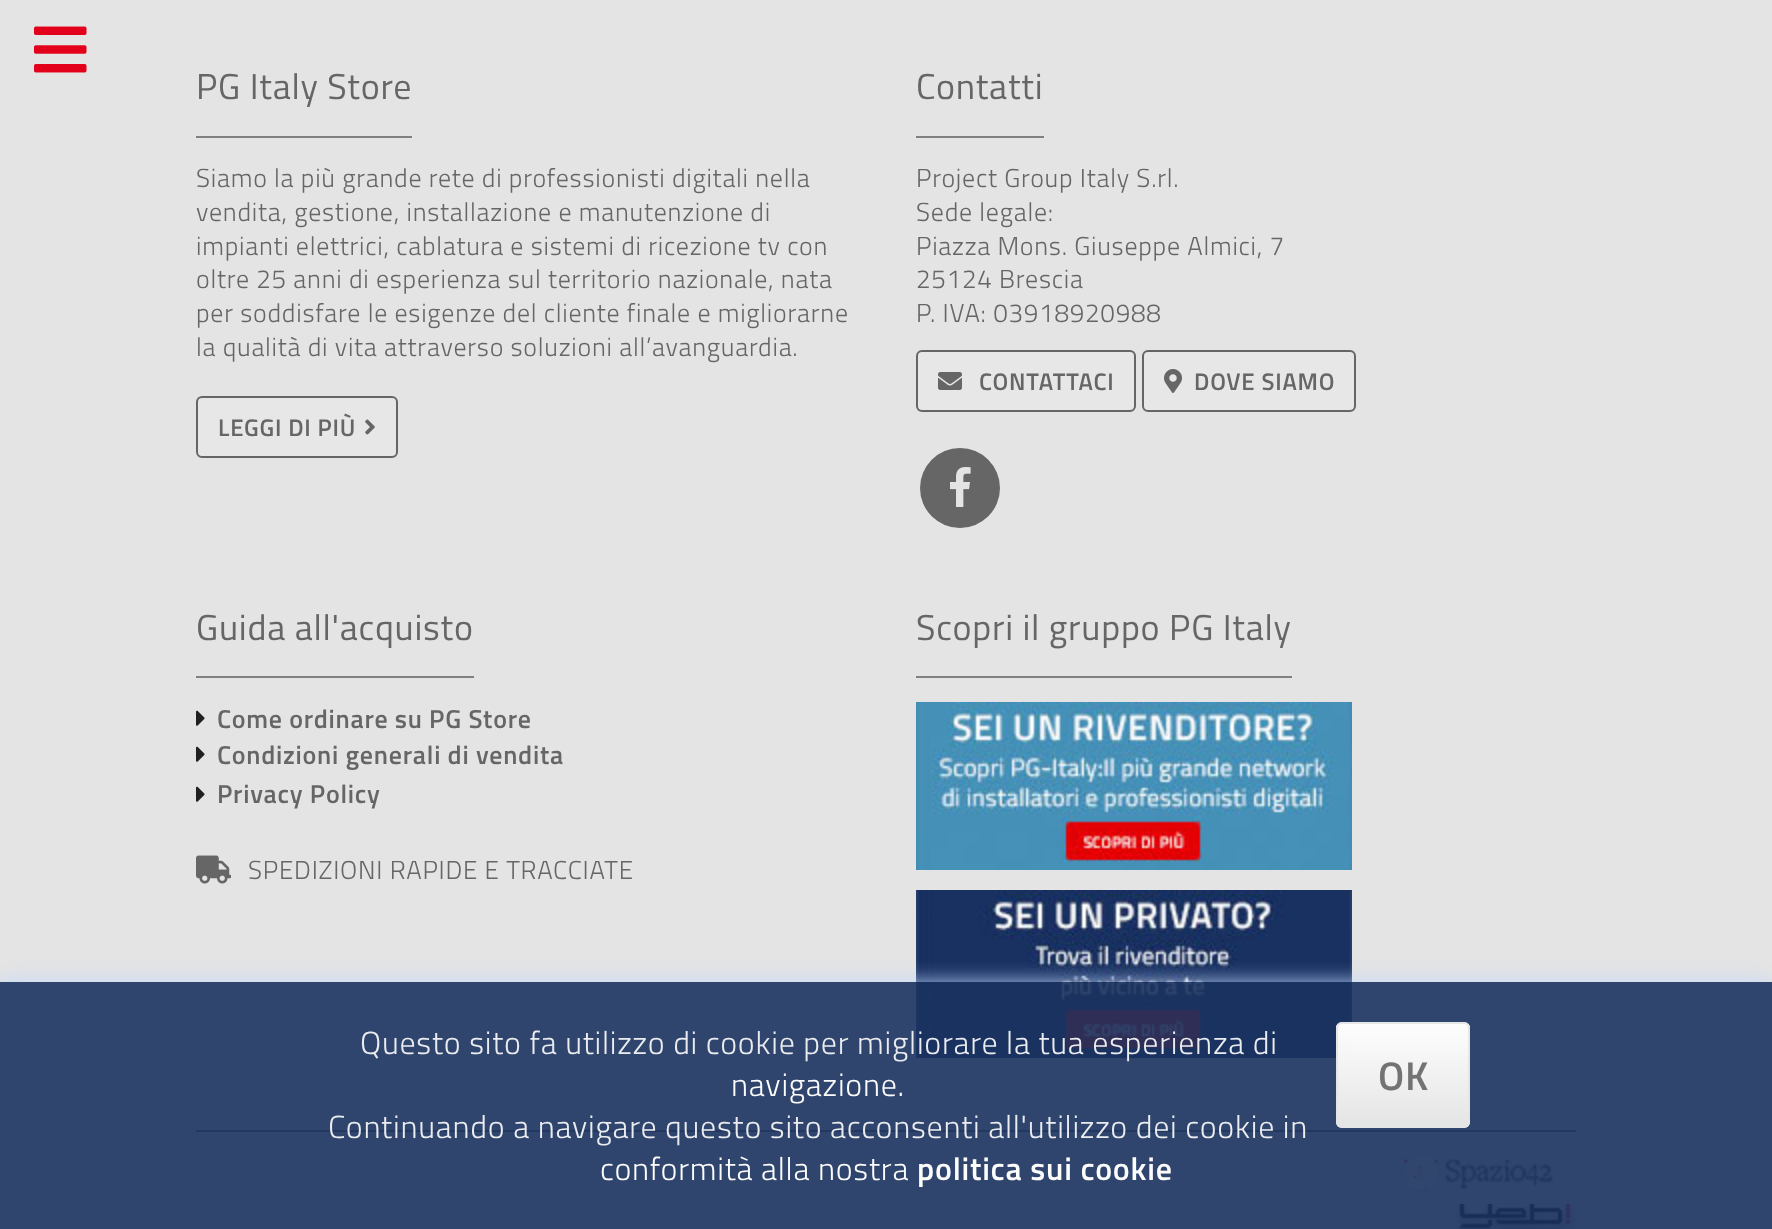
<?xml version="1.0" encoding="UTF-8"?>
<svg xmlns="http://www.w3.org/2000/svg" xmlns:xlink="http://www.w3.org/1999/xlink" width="1772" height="1229">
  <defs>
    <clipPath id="clip1"><rect x="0" y="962" width="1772" height="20" /></clipPath>
    <clipPath id="clip2"><rect x="1336" y="1022" width="134" height="106" rx="6" /></clipPath>
    <linearGradient id="g1" gradientUnits="userSpaceOnUse" x1="1403" y1="1126" x2="1403" y2="1024"><stop offset="0" stop-color="#e4e4e4" stop-opacity="0.9" /><stop offset="1" stop-color="#ffffff" stop-opacity="0.9" /></linearGradient>
  </defs>
  <rect width="100%" height="100%" fill="#e4e4e4" />
  <image x="34" y="26" width="53" height="47" xlink:href="image1.png" />
  <rect x="196" y="136" width="216" height="2" fill="#808080" />
  <rect x="197" y="397" width="200" height="60" rx="5" fill="#e7e7e7" stroke="#666666" stroke-width="2" />
  <image x="365" y="419" width="10" height="16" xlink:href="image2.png" />
  <rect x="916" y="136" width="128" height="2" fill="#808080" />
  <rect x="917" y="351" width="218" height="60" rx="5" fill="#e7e7e7" stroke="#666666" stroke-width="2" />
  <image x="938" y="372" width="24" height="18" xlink:href="image3.png" />
  <rect x="1143" y="351" width="212" height="60" rx="5" fill="#e7e7e7" stroke="#666666" stroke-width="2" />
  <image x="1164" y="369" width="18" height="24" xlink:href="image4.png" />
  <circle cx="960" cy="488" r="40" fill="#666666" />
  <image x="950" y="467" width="21" height="40" xlink:href="image5.png" />
  <rect x="196" y="676" width="278" height="2" fill="#808080" />
  <image x="196" y="710" width="9" height="16" xlink:href="image6.png" />
  <image x="196" y="746" width="9" height="16" xlink:href="image6.png" />
  <image x="196" y="786" width="9" height="16" xlink:href="image6.png" />
  <image x="196" y="855" width="35" height="29" xlink:href="image7.png" />
  <rect x="916" y="676" width="376" height="2" fill="#808080" />
  <image x="916" y="702" width="436" height="168" xlink:href="image8.png" />
  <image x="916" y="890" width="436" height="168" xlink:href="image9.png" />
  <rect x="196" y="1130" width="1380" height="2" fill="#666666" />
  <image x="1401" y="1154" width="152" height="39" xlink:href="image10.png" />
  <image x="1454" y="1204" width="122" height="25" xlink:href="image11.png" />
  <g clip-path="url(#clip1)">
    <rect y="982" width="1772" height="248" fill="#bfd7ff" fill-opacity="0.9" filter="blur(10px)" />
  </g>
  <rect y="982" width="1772" height="247" fill="#1b335f" fill-opacity="0.9" />
  <rect x="1336" y="1022" width="134" height="106" rx="6" fill="#ffffff" fill-opacity="0.9" />
  <g clip-path="url(#clip2)">
    <rect x="1336" y="1024" width="134" height="102" fill="url(#g1)" />
  </g>
  <rect x="1337" y="1023" width="132" height="104" rx="5" fill="none" stroke="#e4e4e4" stroke-opacity="0.9" stroke-width="2" />
  <text x="196" y="99" style="font-family: Titillium Web; font-size: 36px; letter-spacing: 0.75px; fill: #666666">PG Italy Store</text>
  <text x="196" y="187" style="font-family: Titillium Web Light; font-size: 26px; font-weight: 300; letter-spacing: 0.75px; fill: #666666">Siamo la più grande rete di professionisti digitali nella</text>
  <text x="196" y="221" style="font-family: Titillium Web Light; font-size: 26px; font-weight: 300; letter-spacing: 0.75px; fill: #666666">vendita, gestione, installazione e manutenzione di</text>
  <text x="196" y="255" style="font-family: Titillium Web Light; font-size: 26px; font-weight: 300; letter-spacing: 0.75px; fill: #666666">impianti elettrici, cablatura e sistemi di ricezione tv con</text>
  <text x="196" y="288" style="font-family: Titillium Web Light; font-size: 26px; font-weight: 300; letter-spacing: 0.75px; fill: #666666">oltre 25 anni di esperienza sul territorio nazionale, nata</text>
  <text x="196" y="322" style="font-family: Titillium Web Light; font-size: 26px; font-weight: 300; letter-spacing: 0.75px; fill: #666666">per soddisfare le esigenze del cliente finale e migliorarne</text>
  <text x="196" y="356" style="font-family: Titillium Web Light; font-size: 26px; font-weight: 300; letter-spacing: 0.75px; fill: #666666">la qualità di vita attraverso soluzioni all’avanguardia.</text>
  <text x="218" y="436" style="font-family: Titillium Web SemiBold; font-size: 24px; font-weight: 600; letter-spacing: 0.75px; fill: #666666">LEGGI DI PIÙ</text>
  <text x="916" y="99" style="font-family: Titillium Web; font-size: 36px; letter-spacing: 0.75px; fill: #666666">Contatti</text>
  <text x="916" y="187" style="font-family: Titillium Web Light; font-size: 26px; font-weight: 300; letter-spacing: 0.75px; fill: #666666">Project Group Italy S.rl.</text>
  <text x="916" y="221" style="font-family: Titillium Web Light; font-size: 26px; font-weight: 300; letter-spacing: 0.75px; fill: #666666">Sede legale:</text>
  <text x="916" y="255" style="font-family: Titillium Web Light; font-size: 26px; font-weight: 300; letter-spacing: 0.75px; fill: #666666">Piazza Mons. Giuseppe Almici, 7</text>
  <text x="916" y="288" style="font-family: Titillium Web Light; font-size: 26px; font-weight: 300; letter-spacing: 0.75px; fill: #666666">25124 Brescia</text>
  <text x="916" y="322" style="font-family: Titillium Web Light; font-size: 26px; font-weight: 300; letter-spacing: 0.75px; fill: #666666">P. IVA: 03918920988</text>
  <text x="979" y="390" style="font-family: Titillium Web SemiBold; font-size: 24px; font-weight: 600; letter-spacing: 0.75px; fill: #666666">CONTATTACI</text>
  <text x="1194" y="390" style="font-family: Titillium Web SemiBold; font-size: 24px; font-weight: 600; letter-spacing: 0.75px; fill: #666666">DOVE SIAMO</text>
  <text x="196" y="640" style="font-family: Titillium Web; font-size: 36px; letter-spacing: 0.75px; fill: #666666">Guida all'acquisto</text>
  <text x="217" y="728" style="font-family: Titillium Web SemiBold; font-size: 26px; font-weight: 600; letter-spacing: 0.75px; fill: #666666">Come ordinare su PG Store</text>
  <text x="217" y="764" style="font-family: Titillium Web SemiBold; font-size: 26px; font-weight: 600; letter-spacing: 0.75px; fill: #666666">Condizioni generali di vendita</text>
  <text x="217" y="803" style="font-family: Titillium Web SemiBold; font-size: 26px; font-weight: 600; letter-spacing: 0.75px; fill: #666666">Privacy Policy</text>
  <text x="248" y="879" style="font-family: Titillium Web Light; font-size: 26px; font-weight: 300; letter-spacing: 0.75px; fill: #666666">SPEDIZIONI RAPIDE E TRACCIATE</text>
  <text x="916" y="640" style="font-family: Titillium Web; font-size: 36px; letter-spacing: 0.75px; fill: #666666">Scopri il gruppo PG Italy</text>
  <text x="360" y="1054" style="font-family: Titillium Web Light; font-size: 32px; font-weight: 300; letter-spacing: 0.75px; fill: #eaecf0">Questo sito fa utilizzo di cookie per migliorare la tua esperienza di</text>
  <text x="731" y="1096" style="font-family: Titillium Web Light; font-size: 32px; font-weight: 300; letter-spacing: 0.75px; fill: #fcfcfc">navigazione.</text>
  <text x="1378" y="1090" style="font-family: Titillium Web SemiBold; font-size: 40px; font-weight: 600; letter-spacing: 0.75px; fill: #737373">OK</text>
  <text x="328" y="1138" style="font-family: Titillium Web Light; font-size: 32px; font-weight: 300; letter-spacing: 0.75px; fill: #eaecf0">Continuando a navigare questo sito acconsenti all'utilizzo dei cookie in</text>
  <text x="600" y="1180" style="font-family: Titillium Web Light; font-size: 32px; font-weight: 300; letter-spacing: 0.75px; fill: #fcfcfc">conformità alla nostra</text>
  <text x="917" y="1180" style="font-family: Titillium Web SemiBold; font-size: 32px; font-weight: 600; letter-spacing: 0.75px; fill: #fcfcfc">politica sui cookie</text>
</svg>
